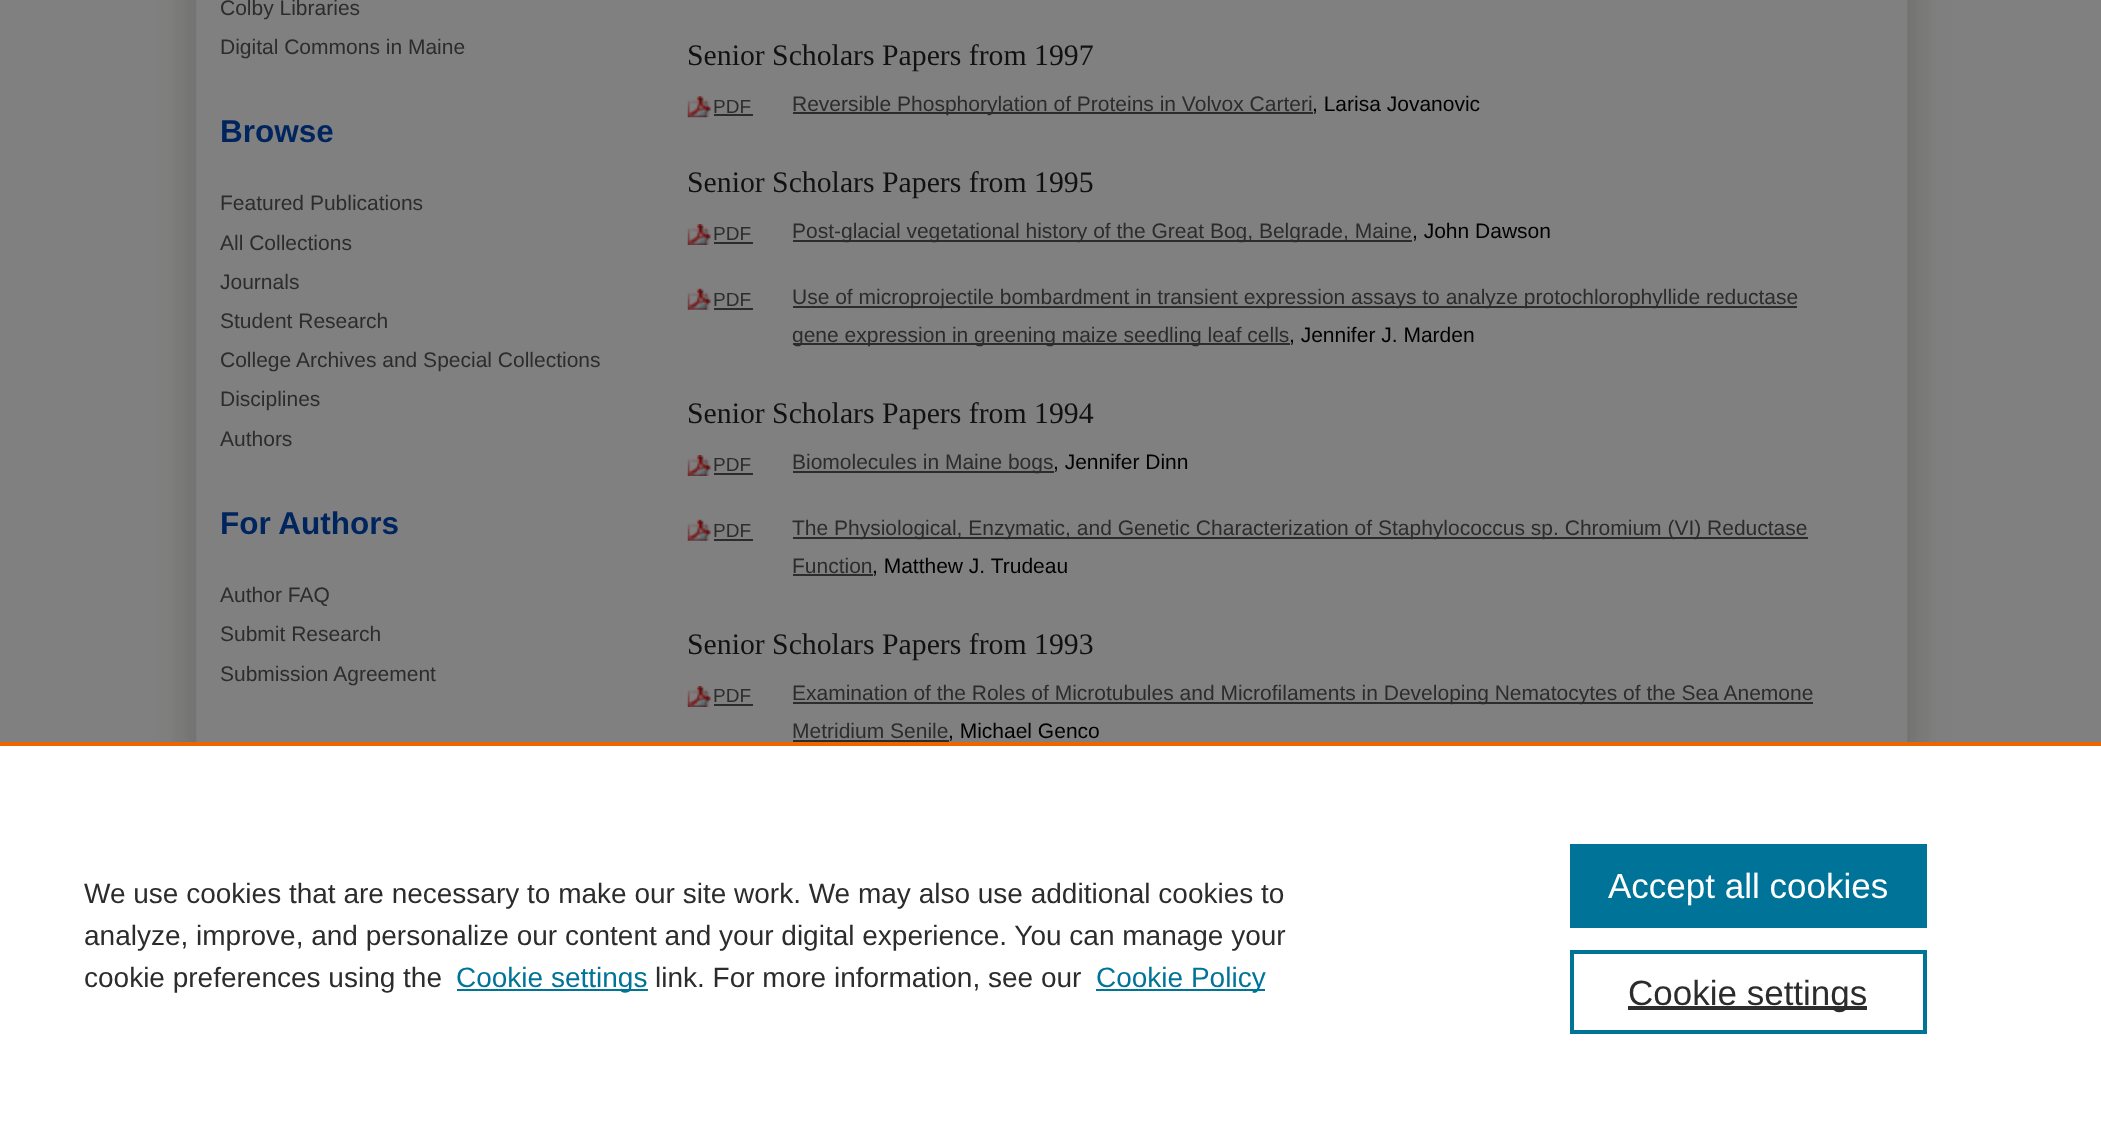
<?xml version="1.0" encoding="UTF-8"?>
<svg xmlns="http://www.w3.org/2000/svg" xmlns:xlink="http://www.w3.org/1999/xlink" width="2101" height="1126">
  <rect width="100%" height="100%" fill="#808080" />
  <rect x="180" y="-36" width="1743" height="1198" fill="#747372" filter="blur(12px)" />
  <image x="194" y="0" width="1715" height="742" xlink:href="image1.png" />
  <image x="687" y="96" width="24" height="22" xlink:href="image2.png" />
  <rect x="714" y="114" width="39" height="2" fill="#2c2c2c" />
  <rect x="793" y="112" width="520" height="2" fill="#2c2c2c" />
  <image x="687" y="224" width="24" height="21" xlink:href="image3.png" />
  <rect x="714" y="242" width="39" height="2" fill="#2c2c2c" />
  <rect x="793" y="240" width="619" height="2" fill="#2c2c2c" />
  <image x="687" y="288" width="24" height="22" xlink:href="image4.png" />
  <rect x="714" y="308" width="39" height="2" fill="#2c2c2c" />
  <rect x="793" y="306" width="1004" height="2" fill="#2c2c2c" />
  <rect x="793" y="343" width="497" height="2" fill="#2c2c2c" />
  <image x="687" y="455" width="24" height="21" xlink:href="image3.png" />
  <rect x="714" y="473" width="39" height="2" fill="#2c2c2c" />
  <rect x="793" y="471" width="261" height="2" fill="#2c2c2c" />
  <image x="687" y="519" width="24" height="22" xlink:href="image4.png" />
  <rect x="714" y="539" width="39" height="2" fill="#2c2c2c" />
  <rect x="793" y="537" width="1015" height="2" fill="#2c2c2c" />
  <rect x="793" y="574" width="80" height="2" fill="#2c2c2c" />
  <image x="687" y="686" width="24" height="21" xlink:href="image3.png" />
  <rect x="714" y="704" width="39" height="2" fill="#2c2c2c" />
  <rect x="793" y="702" width="1020" height="2" fill="#2c2c2c" />
  <rect x="793" y="740" width="156" height="2" fill="#2c2c2c" />
  <rect y="746" width="2101" height="380" fill="#ffffff" />
  <rect y="742" width="2101" height="4" fill="#eb6500" />
  <rect x="457" y="989" width="191" height="2" fill="#007398" />
  <rect x="1096" y="989" width="169" height="2" fill="#007398" />
  <rect x="1570" y="844" width="357" height="84" fill="#007398" />
  <rect x="1572" y="952" width="353" height="80" fill="none" stroke="#007398" stroke-width="4" />
  <rect x="1628" y="1006" width="239" height="4" fill="#2e2e2e" />
  <text x="220" y="15" style="font-family: Liberation Sans; font-size: 21px; fill: #2c2c2c">Colby Libraries</text>
  <text x="220" y="54" style="font-family: Liberation Sans; font-size: 21px; fill: #2c2c2c">Digital Commons in Maine</text>
  <text x="220" y="142" style="font-family: Liberation Sans; font-size: 31.5px; font-weight: bold; fill: #00245e">Browse</text>
  <text x="220" y="210" style="font-family: Liberation Sans; font-size: 21px; fill: #2c2c2c">Featured Publications</text>
  <text x="220" y="250" style="font-family: Liberation Sans; font-size: 21px; fill: #2c2c2c">All Collections</text>
  <text x="220" y="289" style="font-family: Liberation Sans; font-size: 21px; fill: #2c2c2c">Journals</text>
  <text x="220" y="328" style="font-family: Liberation Sans; font-size: 21px; fill: #2c2c2c">Student Research</text>
  <text x="220" y="367" style="font-family: Liberation Sans; font-size: 21px; fill: #2c2c2c">College Archives and Special Collections</text>
  <text x="220" y="406" style="font-family: Liberation Sans; font-size: 21px; fill: #2c2c2c">Disciplines</text>
  <text x="220" y="446" style="font-family: Liberation Sans; font-size: 21px; fill: #2c2c2c">Authors</text>
  <text x="220" y="534" style="font-family: Liberation Sans; font-size: 31.5px; font-weight: bold; fill: #00245e">For Authors</text>
  <text x="220" y="602" style="font-family: Liberation Sans; font-size: 21px; fill: #2c2c2c">Author FAQ</text>
  <text x="220" y="641" style="font-family: Liberation Sans; font-size: 21px; fill: #2c2c2c">Submit Research</text>
  <text x="220" y="681" style="font-family: Liberation Sans; font-size: 21px; fill: #2c2c2c">Submission Agreement</text>
  <text x="687" y="65" style="font-family: Liberation Serif; font-size: 29.75px; fill: #111111">Senior Scholars Papers from 1997</text>
  <text x="713" y="113" style="font-family: Liberation Sans; font-size: 19px; fill: #2c2c2c">PDF</text>
  <text x="792" y="111" style="font-family: Liberation Sans; font-size: 21px; fill: #2c2c2c">Reversible Phosphorylation of Proteins in Volvox Carteri</text>
  <text x="1312" y="111" style="font-family: Liberation Sans; font-size: 21px; fill: #000000">, Larisa Jovanovic</text>
  <text x="687" y="192" style="font-family: Liberation Serif; font-size: 29.75px; fill: #111111">Senior Scholars Papers from 1995</text>
  <text x="713" y="240" style="font-family: Liberation Sans; font-size: 19px; fill: #2c2c2c">PDF</text>
  <text x="792" y="238" style="font-family: Liberation Sans; font-size: 21px; fill: #2c2c2c">Post-glacial vegetational history of the Great Bog, Belgrade, Maine</text>
  <text x="1412" y="238" style="font-family: Liberation Sans; font-size: 21px; fill: #000000">, John Dawson</text>
  <text x="713" y="306" style="font-family: Liberation Sans; font-size: 19px; fill: #2c2c2c">PDF</text>
  <text x="792" y="304" style="font-family: Liberation Sans; font-size: 21px; fill: #2c2c2c">Use of microprojectile bombardment in transient expression assays to analyze protochlorophyllide reductase</text>
  <text x="792" y="342" style="font-family: Liberation Sans; font-size: 21px; fill: #2c2c2c">gene expression in greening maize seedling leaf cells</text>
  <text x="1289" y="342" style="font-family: Liberation Sans; font-size: 21px; fill: #000000">, Jennifer J. Marden</text>
  <text x="687" y="423" style="font-family: Liberation Serif; font-size: 29.75px; fill: #111111">Senior Scholars Papers from 1994</text>
  <text x="713" y="471" style="font-family: Liberation Sans; font-size: 19px; fill: #2c2c2c">PDF</text>
  <text x="792" y="469" style="font-family: Liberation Sans; font-size: 21px; fill: #2c2c2c">Biomolecules in Maine bogs</text>
  <text x="1053" y="469" style="font-family: Liberation Sans; font-size: 21px; fill: #000000">, Jennifer Dinn</text>
  <text x="713" y="537" style="font-family: Liberation Sans; font-size: 19px; fill: #2c2c2c">PDF</text>
  <text x="792" y="535" style="font-family: Liberation Sans; font-size: 21px; fill: #2c2c2c">The Physiological, Enzymatic, and Genetic Characterization of Staphylococcus sp. Chromium (VI) Reductase</text>
  <text x="792" y="573" style="font-family: Liberation Sans; font-size: 21px; fill: #2c2c2c">Function</text>
  <text x="872" y="573" style="font-family: Liberation Sans; font-size: 21px; fill: #000000">, Matthew J. Trudeau</text>
  <text x="687" y="654" style="font-family: Liberation Serif; font-size: 29.75px; fill: #111111">Senior Scholars Papers from 1993</text>
  <text x="713" y="702" style="font-family: Liberation Sans; font-size: 19px; fill: #2c2c2c">PDF</text>
  <text x="792" y="700" style="font-family: Liberation Sans; font-size: 21px; fill: #2c2c2c">Examination of the Roles of Microtubules and Microfilaments in Developing Nematocytes of the Sea Anemone</text>
  <text x="792" y="738" style="font-family: Liberation Sans; font-size: 21px; fill: #2c2c2c">Metridium Senile</text>
  <text x="948" y="738" style="font-family: Liberation Sans; font-size: 21px; fill: #000000">, Michael Genco</text>
  <text x="84" y="903" style="font-family: Liberation Sans; font-size: 28px; fill: #2c2c2c">We use cookies that are necessary to make our site work. We may also use additional cookies to</text>
  <text x="84" y="945" style="font-family: Liberation Sans; font-size: 28px; fill: #2c2c2c">analyze, improve, and personalize our content and your digital experience. You can manage your</text>
  <text x="84" y="987" style="font-family: Liberation Sans; font-size: 28px; fill: #2c2c2c">cookie preferences using the</text>
  <text x="456" y="987" style="font-family: Liberation Sans; font-size: 28px; fill: #007398">Cookie settings</text>
  <text x="655" y="987" style="font-family: Liberation Sans; font-size: 28px; fill: #2c2c2c">link. For more information, see our</text>
  <text x="1096" y="987" style="font-family: Liberation Sans; font-size: 28px; fill: #007398">Cookie Policy</text>
  <text x="1608" y="898" style="font-family: Liberation Sans; font-size: 35px; fill: #ffffff">Accept all cookies</text>
  <text x="1628" y="1005" style="font-family: Liberation Sans; font-size: 35px; fill: #2c2c2c">Cookie settings</text>
</svg>
